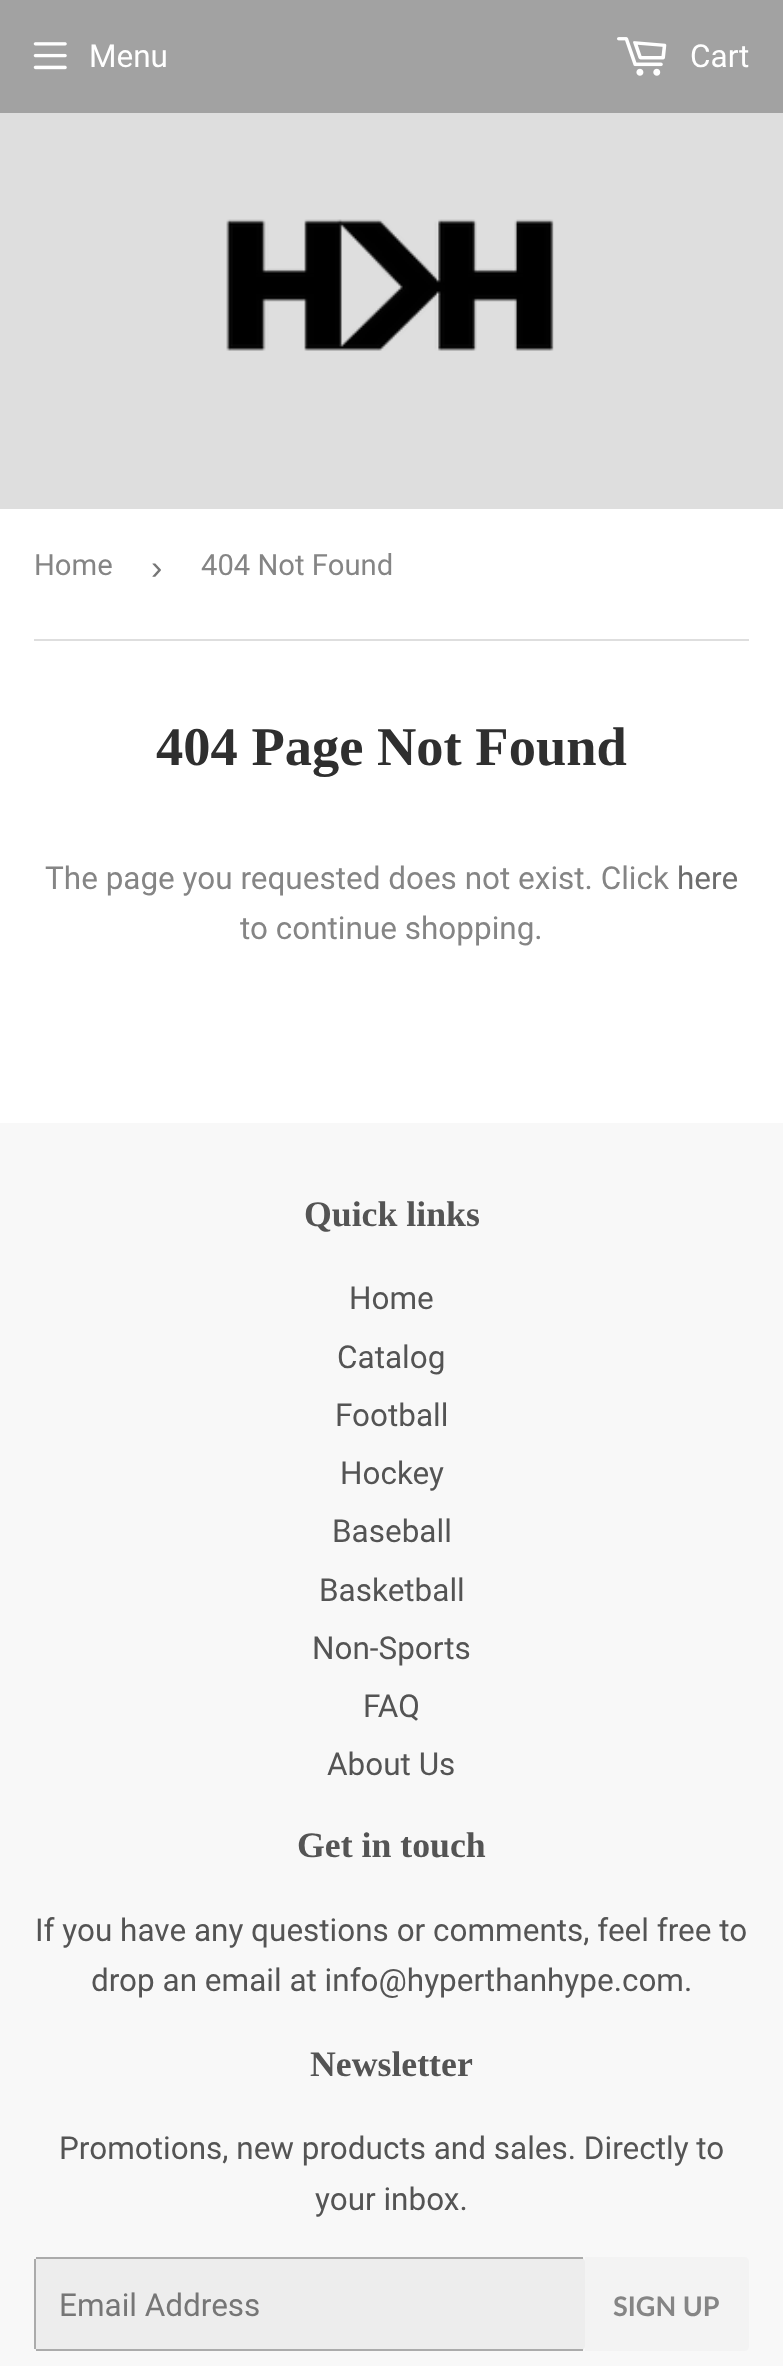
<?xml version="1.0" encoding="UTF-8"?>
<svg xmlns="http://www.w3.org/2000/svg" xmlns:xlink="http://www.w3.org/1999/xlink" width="783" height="2366">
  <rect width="100%" height="100%" fill="#ffffff" />
  <rect width="783" height="113" fill="#a2a2a2" />
  <image x="33" y="42" width="34" height="28" xlink:href="image1.png" />
  <image x="617" y="37" width="50" height="39" xlink:href="image2.png" />
  <rect y="113" width="783" height="396" fill="#dedede" />
  <image x="226" y="219" width="328" height="132" xlink:href="image3.png" />
  <rect x="34" y="639" width="715" height="2" fill="#dedede" />
  <rect y="1123" width="783" height="1243" fill="#f8f8f8" />
  <rect x="34" y="2257" width="551" height="94" rx="5" fill="#ededed" />
  <rect x="36" y="2257" width="547" height="2" fill="#ababab" />
  <rect x="36" y="2349" width="547" height="2" fill="#ababab" />
  <rect x="34" y="2259" width="2" height="90" fill="#ababab" />
  <path d="M 585 2257 h 159 c 3 0 5 2 5 5 v 84 c 0 3 -2 5 -5 5 h -159 z" fill="#f3f3f3" />
  <text x="89" y="67" style="font-family: Roboto; font-size: 31.5px; fill: #ffffff">Menu</text>
  <text x="690" y="67" style="font-family: Roboto; font-size: 31.5px; fill: #ffffff">Cart</text>
  <text x="34" y="575" style="font-family: Roboto; font-size: 29.25px; fill: #858585">Home</text>
  <text x="151" y="579" style="font-family: Liberation Sans; font-size: 34px; fill: #767676">›</text>
  <text x="201" y="575" style="font-family: Roboto; font-size: 29.25px; fill: #858585">404 Not Found</text>
  <text x="156" y="765" style="font-family: Liberation Serif; font-size: 54.5px; font-weight: bold; fill: #2f2f2f">404 Page Not Found</text>
  <text x="45" y="889" style="font-family: Roboto; font-size: 31.5px; fill: #858585">The page you requested does not exist. Click</text>
  <text x="677" y="889" style="font-family: Roboto; font-size: 31.5px; fill: #6d6d6d">here</text>
  <text x="240" y="939" style="font-family: Roboto; font-size: 31.5px; fill: #858585">to continue shopping.</text>
  <text x="304" y="1226" style="font-family: Liberation Serif; font-size: 35.75px; font-weight: bold; fill: #545454">Quick links</text>
  <text x="349" y="1309" style="font-family: Roboto; font-size: 31.5px; fill: #545454">Home</text>
  <text x="337" y="1368" style="font-family: Roboto; font-size: 31.5px; fill: #545454">Catalog</text>
  <text x="335" y="1426" style="font-family: Roboto; font-size: 31.5px; fill: #545454">Football</text>
  <text x="340" y="1484" style="font-family: Roboto; font-size: 31.5px; fill: #545454">Hockey</text>
  <text x="332" y="1542" style="font-family: Roboto; font-size: 31.5px; fill: #545454">Baseball</text>
  <text x="319" y="1601" style="font-family: Roboto; font-size: 31.5px; fill: #545454">Basketball</text>
  <text x="312" y="1659" style="font-family: Roboto; font-size: 31.5px; fill: #545454">Non-Sports</text>
  <text x="363" y="1717" style="font-family: Roboto; font-size: 31.5px; fill: #545454">FAQ</text>
  <text x="327" y="1775" style="font-family: Roboto; font-size: 31.5px; fill: #545454">About Us</text>
  <text x="297" y="1857" style="font-family: Liberation Serif; font-size: 35.75px; font-weight: bold; fill: #545454">Get in touch</text>
  <text x="35" y="1941" style="font-family: Roboto; font-size: 31.5px; fill: #545454">If you have any questions or comments, feel free to</text>
  <text x="91" y="1991" style="font-family: Roboto; font-size: 31.5px; fill: #545454">drop an email at info@hyperthanhype.com.</text>
  <text x="310" y="2076" style="font-family: Liberation Serif; font-size: 35.75px; font-weight: bold; fill: #545454">Newsletter</text>
  <text x="59" y="2159" style="font-family: Roboto; font-size: 31.5px; fill: #545454">Promotions, new products and sales. Directly to</text>
  <text x="315" y="2210" style="font-family: Roboto; font-size: 31.5px; fill: #545454">your inbox.</text>
  <text x="59" y="2316" style="font-family: Roboto; font-size: 31.5px; fill: #767676">Email Address</text>
  <text x="613" y="2316" style="font-family: Lato; font-size: 27px; font-weight: bold; fill: #858585">SIGN UP</text>
</svg>
